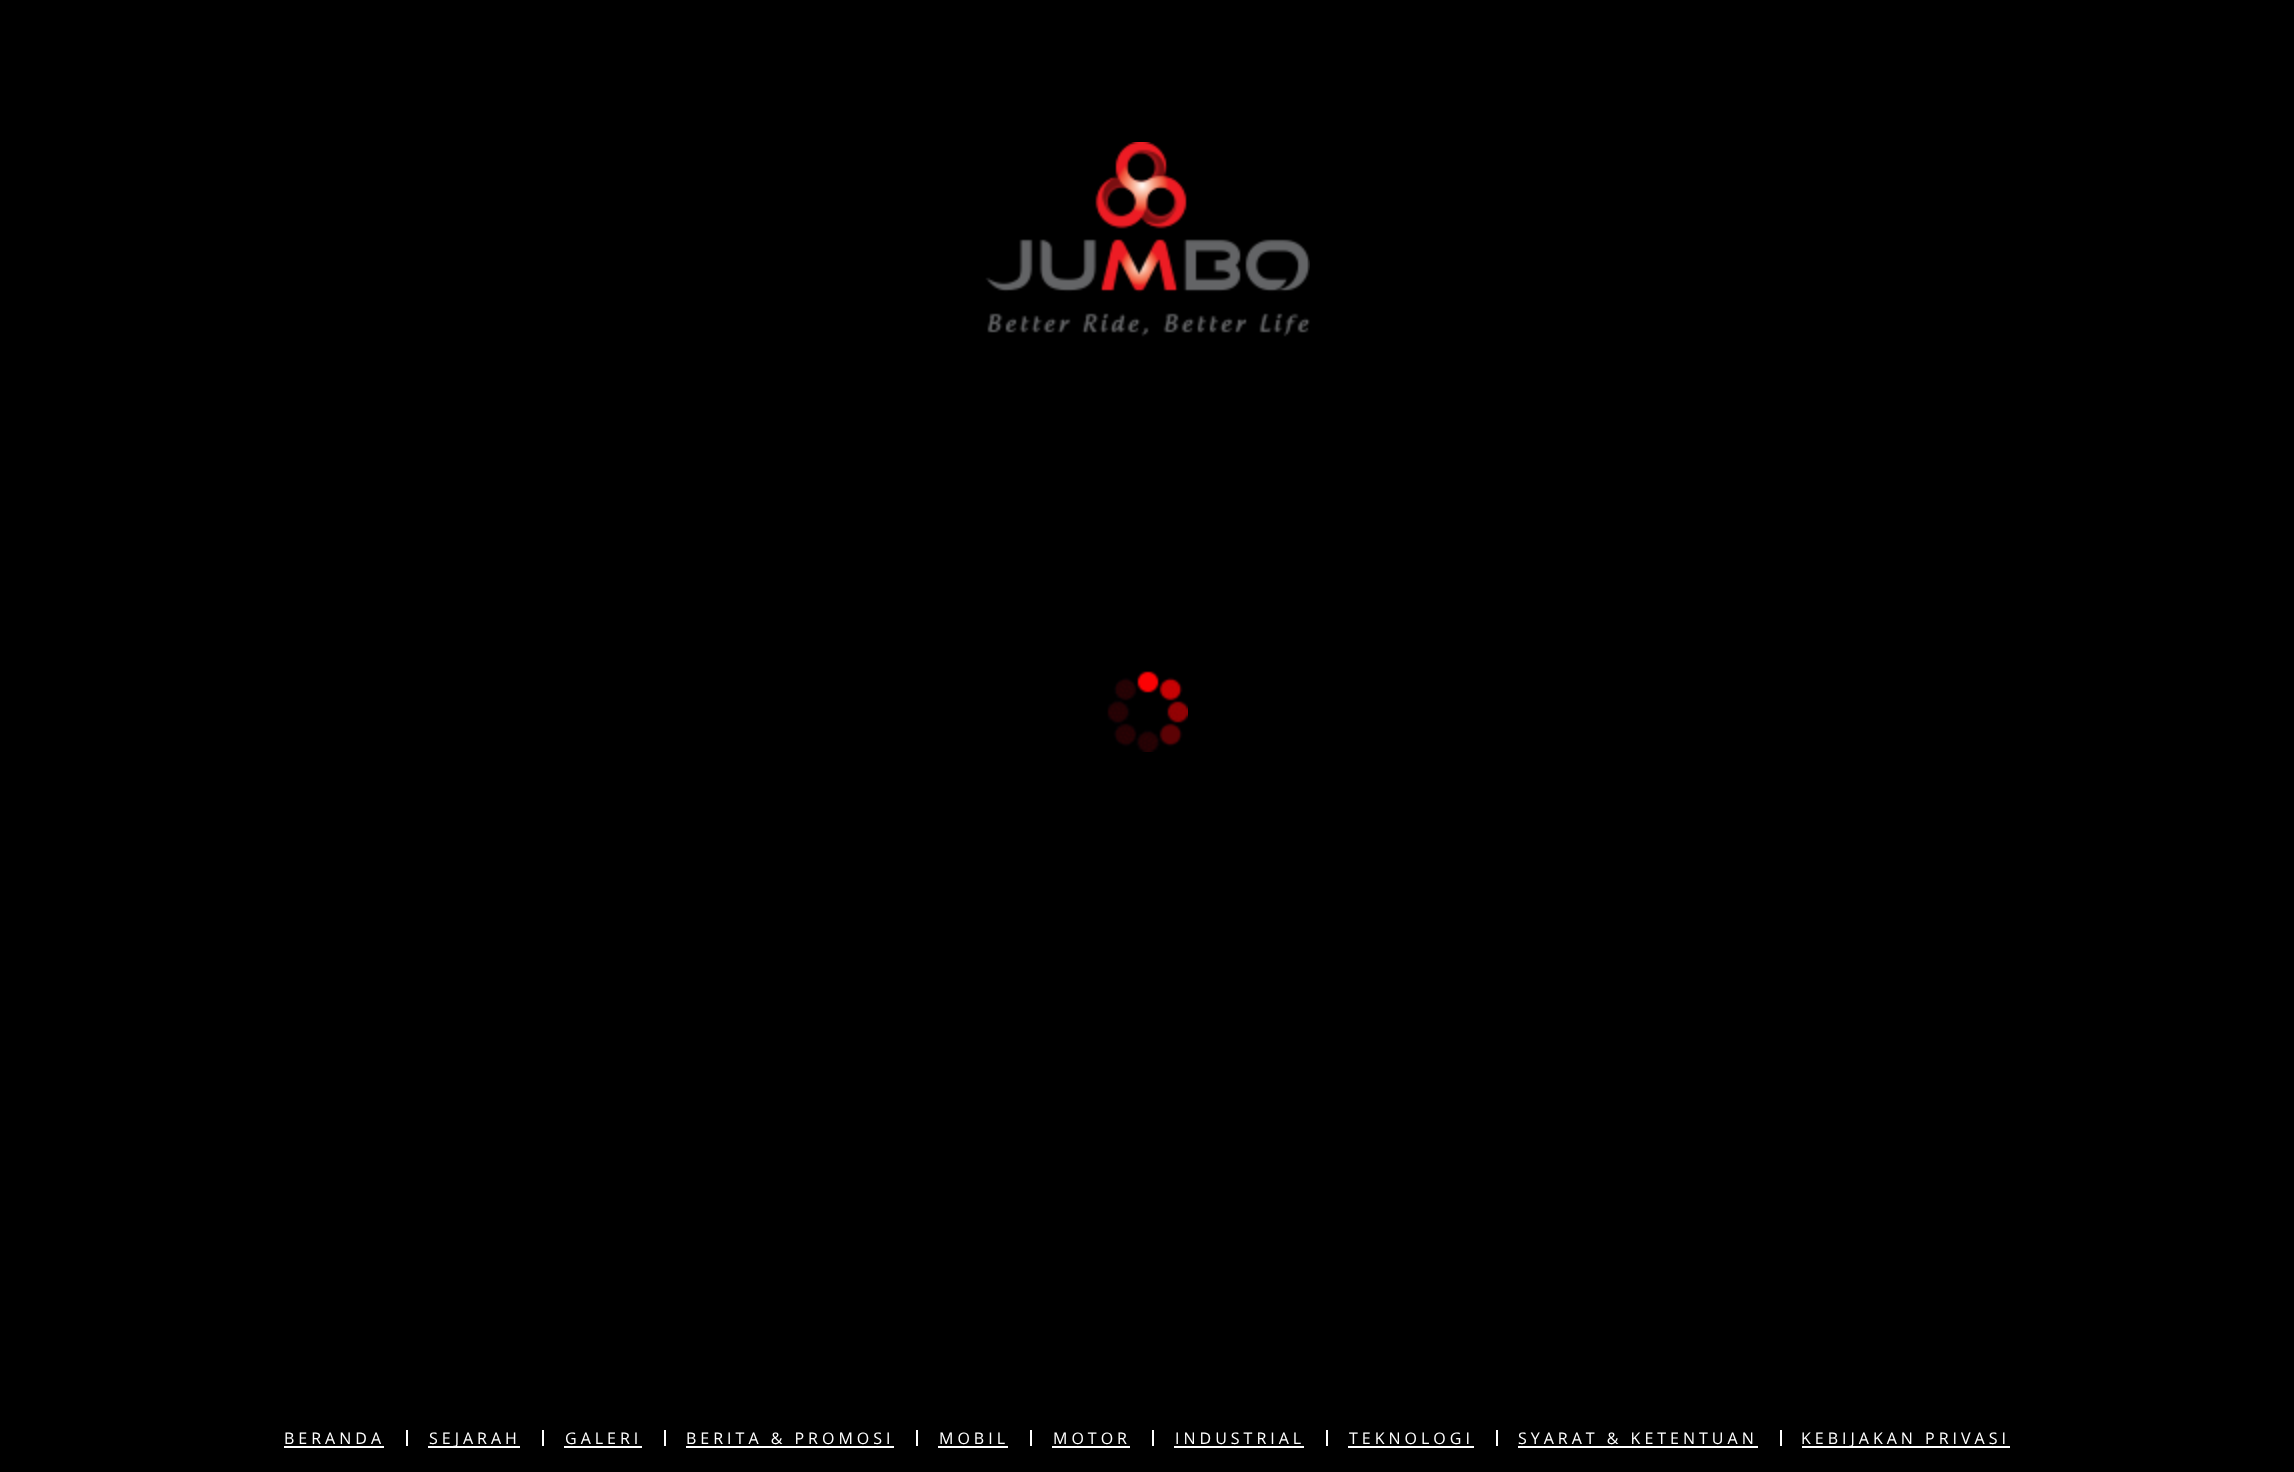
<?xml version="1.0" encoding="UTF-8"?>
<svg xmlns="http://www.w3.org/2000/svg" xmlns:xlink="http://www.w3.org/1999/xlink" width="2294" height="1472">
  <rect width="100%" height="100%" fill="#000000" />
  <image x="985" y="142" width="325" height="195" xlink:href="image1.png" />
  <image x="1107" y="671" width="81" height="81" xlink:href="image2.png" />
  <rect x="284" y="1446" width="100" height="2" fill="#ffffff" />
  <rect x="406" y="1430" width="2" height="16" fill="#ffffff" />
  <rect x="428" y="1446" width="92" height="2" fill="#ffffff" />
  <rect x="542" y="1430" width="2" height="16" fill="#ffffff" />
  <rect x="564" y="1446" width="78" height="2" fill="#ffffff" />
  <rect x="664" y="1430" width="2" height="16" fill="#ffffff" />
  <rect x="686" y="1446" width="208" height="2" fill="#ffffff" />
  <rect x="916" y="1430" width="2" height="16" fill="#ffffff" />
  <rect x="938" y="1446" width="70" height="2" fill="#ffffff" />
  <rect x="1030" y="1430" width="2" height="16" fill="#ffffff" />
  <rect x="1052" y="1446" width="78" height="2" fill="#ffffff" />
  <rect x="1152" y="1430" width="2" height="16" fill="#ffffff" />
  <rect x="1174" y="1446" width="130" height="2" fill="#ffffff" />
  <rect x="1326" y="1430" width="2" height="16" fill="#ffffff" />
  <rect x="1348" y="1446" width="126" height="2" fill="#ffffff" />
  <rect x="1496" y="1430" width="2" height="16" fill="#ffffff" />
  <rect x="1518" y="1446" width="240" height="2" fill="#ffffff" />
  <rect x="1780" y="1430" width="2" height="16" fill="#ffffff" />
  <rect x="1802" y="1446" width="208" height="2" fill="#ffffff" />
  <text x="284" y="1444" style="font-family: Open Sans; font-size: 16px; letter-spacing: 4px; fill: #ffffff">BERANDA</text>
  <text x="429" y="1444" style="font-family: Open Sans; font-size: 16px; letter-spacing: 4px; fill: #ffffff">SEJARAH</text>
  <text x="565" y="1444" style="font-family: Open Sans; font-size: 16px; letter-spacing: 4px; fill: #ffffff">GALERI</text>
  <text x="686" y="1444" style="font-family: Open Sans; font-size: 16px; letter-spacing: 4px; fill: #ffffff">BERITA &amp; PROMOSI</text>
  <text x="939" y="1444" style="font-family: Open Sans; font-size: 16px; letter-spacing: 4px; fill: #ffffff">MOBIL</text>
  <text x="1053" y="1444" style="font-family: Open Sans; font-size: 16px; letter-spacing: 4px; fill: #ffffff">MOTOR</text>
  <text x="1175" y="1444" style="font-family: Open Sans; font-size: 16px; letter-spacing: 4px; fill: #ffffff">INDUSTRIAL</text>
  <text x="1349" y="1444" style="font-family: Open Sans; font-size: 16px; letter-spacing: 4px; fill: #ffffff">TEKNOLOGI</text>
  <text x="1518" y="1444" style="font-family: Open Sans; font-size: 16px; letter-spacing: 4px; fill: #ffffff">SYARAT &amp; KETENTUAN</text>
  <text x="1801" y="1444" style="font-family: Open Sans; font-size: 16px; letter-spacing: 4px; fill: #ffffff">KEBIJAKAN PRIVASI</text>
</svg>
